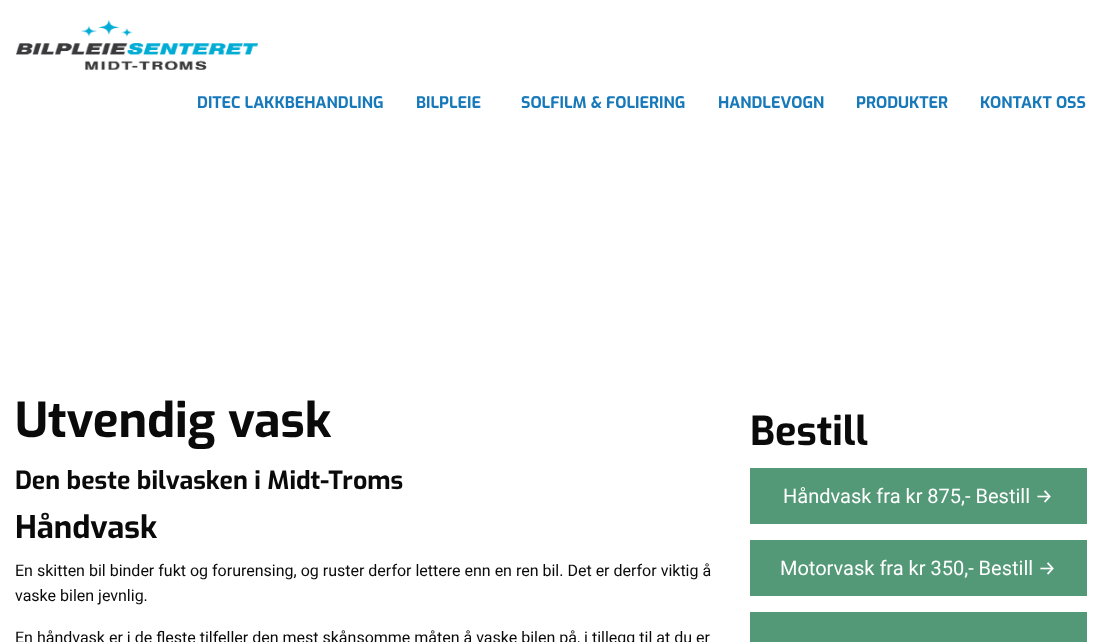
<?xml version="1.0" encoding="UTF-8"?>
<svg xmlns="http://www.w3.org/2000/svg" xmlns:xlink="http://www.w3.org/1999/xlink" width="1102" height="642">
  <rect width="100%" height="100%" fill="#ffffff" />
  <image x="16" y="20" width="242" height="50" xlink:href="image1.png" />
  <rect x="750" y="468" width="337" height="56" fill="#549977" />
  <rect x="750" y="540" width="337" height="56" fill="#549977" />
  <rect x="750" y="612" width="337" height="30" fill="#549977" />
  <text x="197" y="108" style="font-family: Exo; font-size: 16px; font-weight: bold; fill: #1779ba">DITEC LAKKBEHANDLING</text>
  <text x="416" y="108" style="font-family: Exo; font-size: 16px; font-weight: bold; fill: #1779ba">BILPLEIE</text>
  <text x="521" y="108" style="font-family: Exo; font-size: 16px; font-weight: bold; fill: #1779ba">SOLFILM &amp; FOLIERING</text>
  <text x="718" y="108" style="font-family: Exo; font-size: 16px; font-weight: bold; fill: #1779ba">HANDLEVOGN</text>
  <text x="856" y="108" style="font-family: Exo; font-size: 16px; font-weight: bold; fill: #1779ba">PRODUKTER</text>
  <text x="980" y="108" style="font-family: Exo; font-size: 16px; font-weight: bold; fill: #1779ba">KONTAKT OSS</text>
  <text x="15" y="437" style="font-family: Exo; font-size: 48px; font-weight: bold; fill: #0a0a0a">Utvendig vask</text>
  <text x="15" y="489" style="font-family: Exo; font-size: 25px; font-weight: bold; fill: #0a0a0a">Den beste bilvasken i Midt-Troms</text>
  <text x="15" y="538" style="font-family: Exo; font-size: 31px; font-weight: bold; fill: #0a0a0a">Håndvask</text>
  <text x="15" y="576" style="font-family: Roboto; font-size: 16px; fill: #0a0a0a">En skitten bil binder fukt og forurensing, og ruster derfor lettere enn en ren bil. Det er derfor viktig å</text>
  <text x="15" y="601" style="font-family: Roboto; font-size: 16px; fill: #0a0a0a">vaske bilen jevnlig.</text>
  <text x="15" y="643" style="font-family: Roboto; font-size: 16px; fill: #0a0a0a">En håndvask er i de fleste tilfeller den mest skånsomme måten å vaske bilen på, i tillegg til at du er</text>
  <text x="750" y="445" style="font-family: Exo; font-size: 40px; font-weight: bold; fill: #0a0a0a">Bestill</text>
  <text x="783" y="503" style="font-family: Roboto; font-size: 20px; fill: #ffffff">Håndvask fra kr 875,- Bestill</text>
  <text x="1035" y="503" style="font-family: Fira Sans; font-size: 20px; fill: #ffffff">→</text>
  <text x="780" y="575" style="font-family: Roboto; font-size: 20px; fill: #ffffff">Motorvask fra kr 350,- Bestill</text>
  <text x="1038" y="575" style="font-family: Fira Sans; font-size: 20px; fill: #ffffff">→</text>
</svg>
